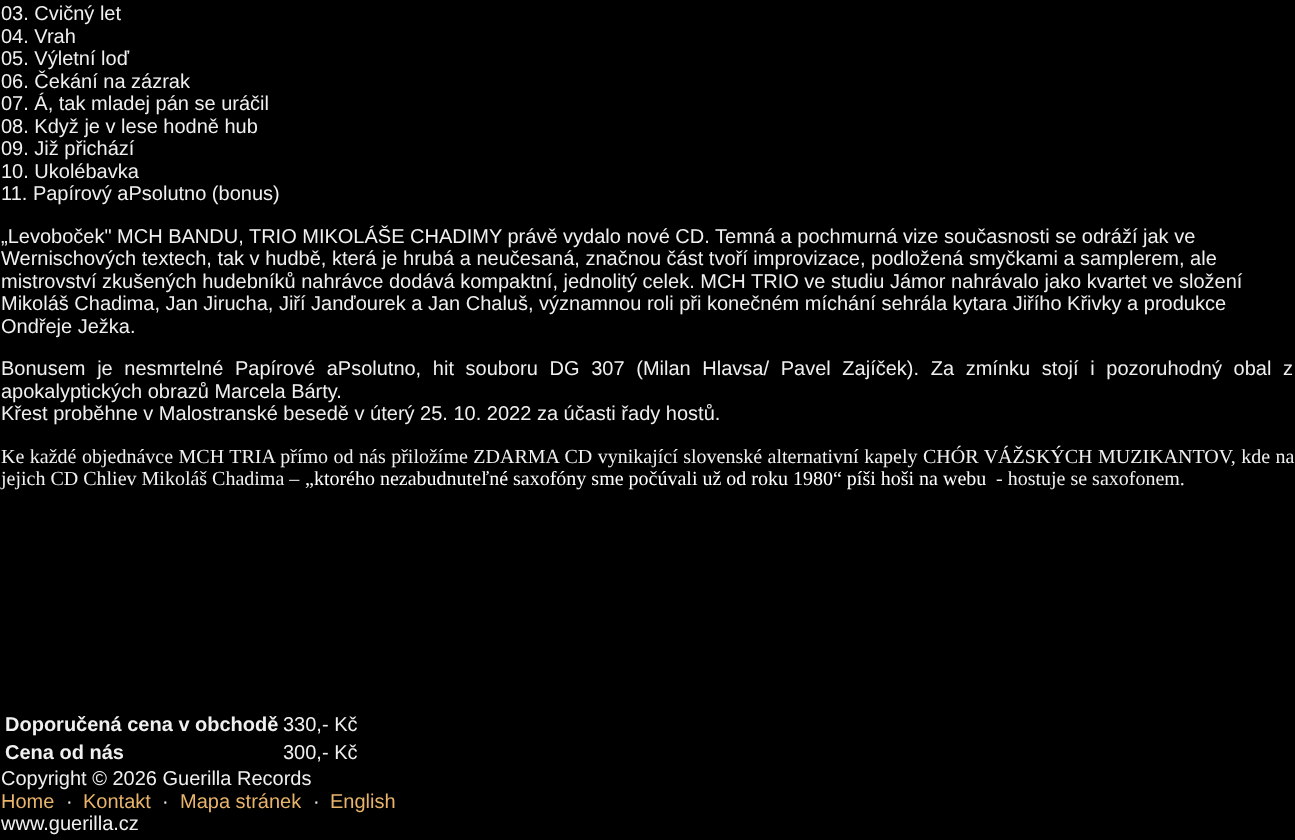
<?xml version="1.0" encoding="UTF-8"?>
<svg xmlns="http://www.w3.org/2000/svg" xmlns:xlink="http://www.w3.org/1999/xlink" width="1295" height="840">
  <rect width="100%" height="100%" fill="#000000" />
  <text x="1" y="20" style="font-family: Liberation Sans; font-size: 20px; fill: #f0f0f0">03. Cvičný let</text>
  <text x="1" y="43" style="font-family: Liberation Sans; font-size: 20px; fill: #f0f0f0">04. Vrah</text>
  <text x="1" y="65" style="font-family: Liberation Sans; font-size: 20px; fill: #f0f0f0">05. Výletní loď</text>
  <text x="1" y="88" style="font-family: Liberation Sans; font-size: 20px; fill: #f0f0f0">06. Čekání na zázrak</text>
  <text x="1" y="110" style="font-family: Liberation Sans; font-size: 20px; fill: #f0f0f0">07. Á, tak mladej pán se uráčil</text>
  <text x="1" y="133" style="font-family: Liberation Sans; font-size: 20px; fill: #f0f0f0">08. Když je v lese hodně hub</text>
  <text x="1" y="155" style="font-family: Liberation Sans; font-size: 20px; fill: #f0f0f0">09. Již přichází</text>
  <text x="1" y="178" style="font-family: Liberation Sans; font-size: 20px; fill: #f0f0f0">10. Ukolébavka</text>
  <text x="1" y="200" style="font-family: Liberation Sans; font-size: 20px; fill: #f0f0f0">11. Papírový aPsolutno (bonus)</text>
  <text x="1" y="243" style="font-family: Liberation Sans; font-size: 20px; fill: #f0f0f0">„Levoboček" MCH BANDU, TRIO MIKOLÁŠE CHADIMY právě vydalo nové CD. Temná a pochmurná vize současnosti se odráží jak ve</text>
  <text x="1" y="265" style="font-family: Liberation Sans; font-size: 20px; fill: #f0f0f0">Wernischových textech, tak v hudbě, která je hrubá a neučesaná, značnou část tvoří improvizace, podložená smyčkami a samplerem, ale</text>
  <text x="1" y="288" style="font-family: Liberation Sans; font-size: 20px; fill: #f0f0f0">mistrovství zkušených hudebníků nahrávce dodává kompaktní, jednolitý celek. MCH TRIO ve studiu Jámor nahrávalo jako kvartet ve složení</text>
  <text x="1" y="310" style="font-family: Liberation Sans; font-size: 20px; fill: #f0f0f0">Mikoláš Chadima, Jan Jirucha, Jiří Janďourek a Jan Chaluš, významnou roli při konečném míchání sehrála kytara Jiřího Křivky a produkce</text>
  <text x="1" y="333" style="font-family: Liberation Sans; font-size: 20px; fill: #f0f0f0">Ondřeje Ježka.</text>
  <text x="1" y="375" word-spacing="6.1" style="font-family: Liberation Sans; font-size: 20px; fill: #f0f0f0">Bonusem je nesmrtelné Papírové aPsolutno, hit souboru DG 307 (Milan Hlavsa/ Pavel Zajíček). Za zmínku stojí i pozoruhodný obal z</text>
  <text x="1" y="398" style="font-family: Liberation Sans; font-size: 20px; fill: #f0f0f0">apokalyptických obrazů Marcela Bárty.</text>
  <text x="1" y="420" style="font-family: Liberation Sans; font-size: 20px; fill: #f0f0f0">Křest proběhne v Malostranské besedě v úterý 25. 10. 2022 za účasti řady hostů.</text>
  <text x="1" y="463" word-spacing="0.5" style="font-family: Liberation Serif; font-size: 20px; fill: #f0f0f0">Ke každé objednávce MCH TRIA přímo od nás přiložíme ZDARMA CD vynikající slovenské alternativní kapely CHÓR VÁŽSKÝCH MUZIKANTOV, kde na</text>
  <text x="1" y="485" style="font-family: Liberation Serif; font-size: 20px; fill: #f0f0f0">jejich CD Chliev Mikoláš Chadima –</text>
  <text x="305" y="485" style="font-family: Liberation Serif; font-size: 20px; fill: #ffffff">„ktorého nezabudnuteľné saxofóny sme počúvali už od roku 1980“ píši hoši na webu</text>
  <text x="996" y="485" style="font-family: Liberation Serif; font-size: 20px; fill: #f0f0f0">- hostuje se saxofonem.</text>
  <text x="5" y="731" style="font-family: Liberation Sans; font-size: 20px; font-weight: bold; fill: #f0f0f0">Doporučená cena v obchodě</text>
  <text x="283" y="731" style="font-family: Liberation Sans; font-size: 20px; fill: #f0f0f0">330,- Kč</text>
  <text x="5" y="759" style="font-family: Liberation Sans; font-size: 20px; font-weight: bold; fill: #f0f0f0">Cena od nás</text>
  <text x="283" y="759" style="font-family: Liberation Sans; font-size: 20px; fill: #f0f0f0">300,- Kč</text>
  <text x="1" y="785" style="font-family: Liberation Sans; font-size: 20px; fill: #f0f0f0">Copyright © 2026 Guerilla Records</text>
  <text x="1" y="808" style="font-family: Liberation Sans; font-size: 20px; fill: #e8b46b">Home</text>
  <text x="66" y="808" style="font-family: Liberation Sans; font-size: 20px; fill: #f0f0f0">·</text>
  <text x="83" y="808" style="font-family: Liberation Sans; font-size: 20px; fill: #e8b46b">Kontakt</text>
  <text x="162" y="808" style="font-family: Liberation Sans; font-size: 20px; fill: #f0f0f0">·</text>
  <text x="180" y="808" style="font-family: Liberation Sans; font-size: 20px; fill: #e8b46b">Mapa stránek</text>
  <text x="313" y="808" style="font-family: Liberation Sans; font-size: 20px; fill: #f0f0f0">·</text>
  <text x="330" y="808" style="font-family: Liberation Sans; font-size: 20px; fill: #e8b46b">English</text>
  <text x="1" y="830" style="font-family: Liberation Sans; font-size: 20px; fill: #f0f0f0">www.guerilla.cz</text>
</svg>
